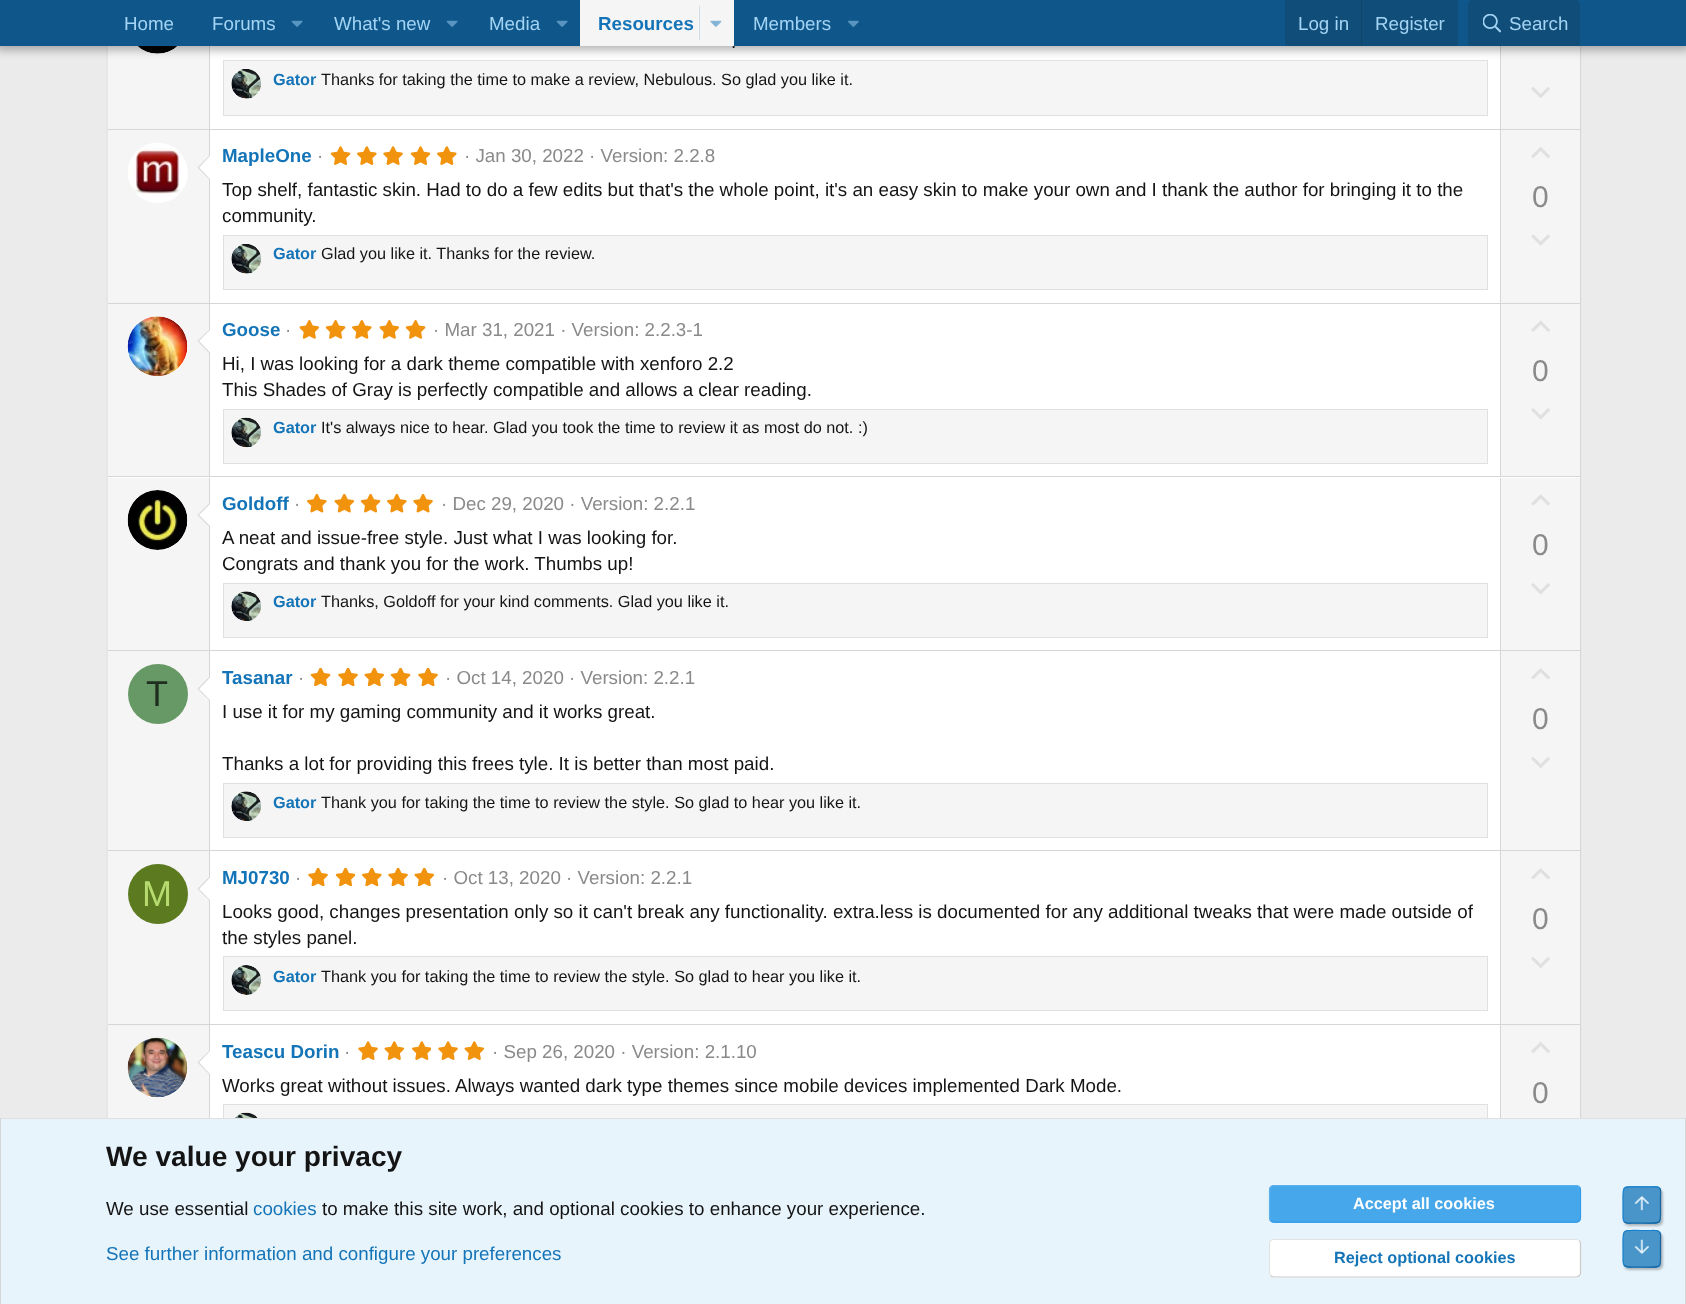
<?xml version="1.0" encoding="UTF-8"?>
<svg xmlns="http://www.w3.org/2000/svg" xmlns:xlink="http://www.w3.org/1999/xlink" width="1686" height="1304">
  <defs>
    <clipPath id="clip1"><path d="M 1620 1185 h 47 v 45 h -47 z m 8 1 h 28 c 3 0 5 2 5 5 v 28 c 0 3 -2 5 -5 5 h -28 c -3 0 -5 -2 -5 -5 v -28 c 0 -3 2 -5 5 -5 z" clip-rule="evenodd" /></clipPath>
    <clipPath id="clip2"><path d="M 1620 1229 h 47 v 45 h -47 z m 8 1 h 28 c 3 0 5 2 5 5 v 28 c 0 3 -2 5 -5 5 h -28 c -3 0 -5 -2 -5 -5 v -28 c 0 -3 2 -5 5 -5 z" clip-rule="evenodd" /></clipPath>
  </defs>
  <rect width="100%" height="100%" fill="#ebebeb" />
  <rect x="106" y="46" width="1474" height="1072" fill="#ffffff" />
  <path d="M 1579.5 -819.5 l 1 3.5 v 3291 l -1 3" fill="none" stroke="#d6d6d6" stroke-width="1.2" />
  <path d="M 108 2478 l -1 -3 v -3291 l 1 -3.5" fill="none" stroke="#d6d6d6" stroke-width="1.2" />
  <rect x="108" y="46" width="101" height="83" fill="#f5f5f5" />
  <rect x="209" y="46" width="1" height="83" fill="#d6d6d6" />
  <circle cx="158" cy="24" r="30" fill="#ffffff" />
  <image x="138" y="46" width="39" height="8" xlink:href="image5.png" />
  <rect x="223.5" y="60.5" width="1264" height="55" fill="#f5f5f5" stroke="#e0e0e0" />
  <rect x="1501" y="46" width="79" height="83" fill="#f5f5f5" />
  <rect x="1500" y="46" width="1" height="83" fill="#d6d6d6" />
  <rect x="-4" y="-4" width="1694" height="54" fill="#000000" fill-opacity="0.3" filter="blur(5px)" />
  <circle cx="246" cy="84" r="15" fill="#ffffff" />
  <image x="231" y="69" width="30" height="30" xlink:href="image6.png" />
  <image x="1531" y="87" width="19" height="11" xlink:href="image7.png" />
  <rect x="108" y="129" width="1472" height="1" fill="#d6d6d6" />
  <rect x="108" y="130" width="101" height="173" fill="#f5f5f5" />
  <rect x="209" y="130" width="1" height="173" fill="#d6d6d6" />
  <circle cx="158" cy="173" r="30" fill="#ffffff" />
  <image x="128" y="143" width="53" height="51" xlink:href="image8.png" />
  <path d="M 210 155 v 25 l -12.5 -12.5 z" fill="#d6d6d6" />
  <path d="M 210 156 v 23 l -11 -11.5 z" fill="#ffffff" />
  <image x="330" y="146" width="21" height="19" xlink:href="image9.png" />
  <image x="357" y="146" width="20" height="19" xlink:href="image10.png" />
  <image x="383" y="146" width="20" height="19" xlink:href="image11.png" />
  <image x="410" y="146" width="20" height="19" xlink:href="image12.png" />
  <image x="437" y="146" width="20" height="19" xlink:href="image10.png" />
  <rect x="223.5" y="235.5" width="1264" height="54" fill="#f5f5f5" stroke="#e0e0e0" />
  <circle cx="246" cy="259" r="15" fill="#ffffff" />
  <image x="231" y="244" width="30" height="30" xlink:href="image13.png" />
  <rect x="1501" y="130" width="79" height="173" fill="#f5f5f5" />
  <rect x="1500" y="130" width="1" height="173" fill="#d6d6d6" />
  <image x="1531" y="147" width="19" height="11" xlink:href="image14.png" />
  <image x="1531" y="234" width="19" height="12" xlink:href="image15.png" />
  <rect x="108" y="303" width="1472" height="1" fill="#d6d6d6" />
  <rect x="108" y="304" width="101" height="172" fill="#f5f5f5" />
  <rect x="209" y="304" width="1" height="172" fill="#d6d6d6" />
  <circle cx="158" cy="346" r="30" fill="#ffffff" />
  <image x="127" y="316" width="61" height="60" xlink:href="image16.png" />
  <path d="M 210 329 v 25 l -12.5 -13 z" fill="#d6d6d6" />
  <path d="M 210 330 v 22.5 l -11 -11.5 z" fill="#ffffff" />
  <image x="299" y="320" width="21" height="19" xlink:href="image17.png" />
  <image x="325" y="320" width="21" height="19" xlink:href="image18.png" />
  <image x="352" y="320" width="20" height="19" xlink:href="image19.png" />
  <image x="379" y="320" width="20" height="19" xlink:href="image20.png" />
  <image x="405" y="320" width="21" height="19" xlink:href="image18.png" />
  <rect x="223.5" y="409.5" width="1264" height="54" fill="#f5f5f5" stroke="#e0e0e0" />
  <circle cx="246" cy="433" r="15" fill="#ffffff" />
  <image x="231" y="417" width="30" height="31" xlink:href="image21.png" />
  <rect x="1501" y="304" width="79" height="172" fill="#f5f5f5" />
  <rect x="1500" y="304" width="1" height="172" fill="#d6d6d6" />
  <image x="1531" y="320" width="19" height="12" xlink:href="image22.png" />
  <image x="1531" y="408" width="19" height="12" xlink:href="image23.png" />
  <rect x="108" y="476" width="1472" height="1" fill="#d6d6d6" />
  <rect x="108" y="478" width="101" height="172" fill="#f5f5f5" />
  <rect x="209" y="478" width="1" height="172" fill="#d6d6d6" />
  <circle cx="158" cy="520" r="30" fill="#ffffff" />
  <image x="127" y="490" width="61" height="60" xlink:href="image24.png" />
  <path d="M 210 502.5 v 25 l -12.5 -12.5 z" fill="#d6d6d6" />
  <path d="M 210 504 v 22 l -11 -11 z" fill="#ffffff" />
  <image x="307" y="494" width="20" height="19" xlink:href="image25.png" />
  <image x="334" y="494" width="21" height="19" xlink:href="image26.png" />
  <image x="360" y="494" width="21" height="19" xlink:href="image27.png" />
  <image x="387" y="494" width="20" height="19" xlink:href="image25.png" />
  <image x="413" y="494" width="20" height="19" xlink:href="image28.png" />
  <rect x="223.5" y="583.5" width="1264" height="54" fill="#f5f5f5" stroke="#e0e0e0" />
  <circle cx="246" cy="606" r="15" fill="#ffffff" />
  <image x="231" y="591" width="30" height="30" xlink:href="image29.png" />
  <rect x="1501" y="478" width="79" height="172" fill="#f5f5f5" />
  <rect x="1500" y="478" width="1" height="172" fill="#d6d6d6" />
  <image x="1531" y="494" width="19" height="12" xlink:href="image30.png" />
  <image x="1531" y="583" width="19" height="12" xlink:href="image23.png" />
  <rect x="108" y="650" width="1472" height="1" fill="#d6d6d6" />
  <rect x="108" y="651" width="101" height="199" fill="#f5f5f5" />
  <rect x="209" y="651" width="1" height="199" fill="#d6d6d6" />
  <circle cx="158" cy="694" r="30" fill="#669966" />
  <path d="M 210 676 v 25 l -12.5 -12 z" fill="#d6d6d6" />
  <path d="M 210 677.5 v 22.5 l -11 -11 z" fill="#ffffff" />
  <image x="310" y="668" width="21" height="18" xlink:href="image31.png" />
  <image x="338" y="668" width="20" height="18" xlink:href="image32.png" />
  <image x="364" y="668" width="21" height="18" xlink:href="image33.png" />
  <image x="390" y="668" width="21" height="18" xlink:href="image31.png" />
  <image x="418" y="668" width="20" height="18" xlink:href="image32.png" />
  <rect x="223.5" y="783.5" width="1264" height="54" fill="#f5f5f5" stroke="#e0e0e0" />
  <circle cx="246" cy="806" r="15" fill="#ffffff" />
  <image x="231" y="791" width="30" height="30" xlink:href="image34.png" />
  <rect x="1501" y="651" width="79" height="199" fill="#f5f5f5" />
  <rect x="1500" y="651" width="1" height="199" fill="#d6d6d6" />
  <image x="1531" y="668" width="19" height="11" xlink:href="image35.png" />
  <image x="1531" y="757" width="19" height="11" xlink:href="image7.png" />
  <rect x="108" y="850" width="1472" height="1" fill="#d6d6d6" />
  <rect x="108" y="851" width="101" height="173" fill="#f5f5f5" />
  <rect x="209" y="851" width="1" height="173" fill="#d6d6d6" />
  <circle cx="158" cy="894" r="30" fill="#5c7a1f" />
  <path d="M 210 876 v 25 l -12.5 -12 z" fill="#d6d6d6" />
  <path d="M 210 877.5 v 22.5 l -11 -11 z" fill="#ffffff" />
  <image x="308" y="868" width="20" height="18" xlink:href="image32.png" />
  <image x="335" y="868" width="20" height="18" xlink:href="image36.png" />
  <image x="362" y="868" width="20" height="18" xlink:href="image37.png" />
  <image x="388" y="868" width="20" height="18" xlink:href="image32.png" />
  <image x="414" y="868" width="21" height="18" xlink:href="image33.png" />
  <rect x="223.5" y="956.5" width="1264" height="54" fill="#f5f5f5" stroke="#e0e0e0" />
  <circle cx="246" cy="980" r="15" fill="#ffffff" />
  <image x="231" y="965" width="30" height="30" xlink:href="image38.png" />
  <rect x="1501" y="851" width="79" height="173" fill="#f5f5f5" />
  <rect x="1500" y="851" width="1" height="173" fill="#d6d6d6" />
  <image x="1531" y="868" width="19" height="11" xlink:href="image35.png" />
  <image x="1531" y="957" width="19" height="11" xlink:href="image7.png" />
  <rect x="108" y="1024" width="1472" height="1" fill="#d6d6d6" />
  <rect x="108" y="1025" width="101" height="93" fill="#f5f5f5" />
  <rect x="209" y="1025" width="1" height="93" fill="#d6d6d6" />
  <circle cx="158" cy="1068" r="30" fill="#ffffff" />
  <image x="127" y="1037" width="61" height="61" xlink:href="image39.png" />
  <path d="M 210 1050 v 25 l -12.5 -12.5 z" fill="#d6d6d6" />
  <path d="M 210 1051 v 23 l -11 -11.5 z" fill="#ffffff" />
  <image x="358" y="1041" width="20" height="19" xlink:href="image11.png" />
  <image x="384" y="1041" width="21" height="19" xlink:href="image40.png" />
  <image x="412" y="1041" width="19" height="19" xlink:href="image41.png" />
  <image x="438" y="1041" width="20" height="19" xlink:href="image11.png" />
  <image x="464" y="1041" width="21" height="19" xlink:href="image40.png" />
  <rect x="224" y="1105" width="1263" height="13" fill="#f5f5f5" />
  <rect x="223.5" y="1104.5" width="1264" height="55" fill="none" stroke="#e0e0e0" />
  <image x="235" y="1112" width="23" height="6" xlink:href="image42.png" />
  <rect x="1501" y="1025" width="79" height="93" fill="#f5f5f5" />
  <rect x="1500" y="1025" width="1" height="93" fill="#d6d6d6" />
  <image x="1531" y="1042" width="19" height="11" xlink:href="image14.png" />
  <rect x="1" y="1119" width="1684" height="185" fill="#e8f4fc" />
  <rect y="1118" width="1686" height="1" fill="#e0e0e0" />
  <rect x="1685" y="1118" width="1" height="186" fill="#d6d6d6" />
  <rect y="1118" width="1" height="186" fill="#d6d6d6" />
  <rect x="1269" y="1185" width="312" height="38" rx="5" fill="#47a7eb" />
  <path d="M 1579.5 1187 c 0.5 0.5 1 2 1 3 v 27.5 c 0 1 -0.5 2.5 -1 3 c -1 1 -2 1.5 -3.5 1.5 h -302 c -1.5 0 -2.5 -0.5 -3.5 -1.5" fill="none" stroke="#309ce8" stroke-width="1.2" />
  <path d="M 1270.5 1220.5 c -0.5 -0.5 -1 -2 -1 -3 v -27.5 c 0 -1 0.5 -2.5 1 -3 c 1 -1 2 -1.5 3.5 -1.5 h 302 c 1.5 0 2.5 0.5 3.5 1.5" fill="none" stroke="#5eb2ed" stroke-width="1.2" />
  <rect x="1269" y="1239" width="312" height="39" rx="5" fill="#ffffff" />
  <path d="M 1579.5 1240.5 c 0.5 1 1 2 1 3.5 v 28.5 c 0 1 -0.5 2.5 -1 3 c -1 1 -2 1.5 -3.5 1.5 h -302 c -1.5 0 -2.5 -0.5 -3.5 -1.5" fill="none" stroke="#c9c9c9" stroke-width="1.2" />
  <path d="M 1270.5 1275.5 c -0.5 -0.5 -1 -2 -1 -3 v -28.5 c 0 -1.5 0.5 -2.5 1 -3.5 c 1 -0.5 2 -1 3.5 -1 h 302 c 1.5 0 2.5 0.5 3.5 1" fill="none" stroke="#e3e3e3" stroke-width="1.2" />
  <g clip-path="url(#clip1)">
    <rect x="1624" y="1189" width="39" height="37" rx="5" fill="#000000" fill-opacity="0.25" filter="blur(1px)" />
  </g>
  <rect x="1623" y="1186" width="38" height="38" rx="5" fill="#1474b8" fill-opacity="0.75" />
  <path d="M 1659.5 1188 c 2 2 1 5.5 1 8 v 9 c 0 21 2.5 18 -18.5 18 h -9.5 c -2.5 0 -6 1 -8 -1" fill="none" stroke="#1265a1" stroke-width="1.2" />
  <path d="M 1624.5 1222 c -2 -2 -1.5 -5.5 -1.5 -8 v -9 c 0 -21 -2.5 -18 19 -18 h 9.5 c 2.5 0 6 -1 8 1" fill="none" stroke="#1782cf" stroke-width="1.2" />
  <image x="1634" y="1196" width="15" height="15" xlink:href="image43.png" />
  <g clip-path="url(#clip2)">
    <rect x="1624" y="1233" width="39" height="37" rx="5" fill="#000000" fill-opacity="0.25" filter="blur(1px)" />
  </g>
  <rect x="1623" y="1230" width="38" height="38" rx="5" fill="#1474b8" fill-opacity="0.75" />
  <path d="M 1659.5 1232 c 2 2 1 5 1 7.5 v 9.5 c 0 21 2.5 18 -18.5 18 h -9.5 c -2.5 0 -6 0.5 -8 -1.5" fill="none" stroke="#1265a1" stroke-width="1.2" />
  <path d="M 1624.5 1265.5 c -2 -2 -1.5 -5 -1.5 -7.5 v -9 c 0 -21.5 -2.5 -18.5 19 -18.5 h 9.5 c 2.5 0 6 -0.5 8 1.5" fill="none" stroke="#1782cf" stroke-width="1.2" />
  <image x="1634" y="1239" width="15" height="15" xlink:href="image44.png" />
  <text x="731" y="48" style="font-family: Liberation Sans; font-size: 18.75px; fill: #141414">.</text>
  <rect width="1686" height="46" fill="#0f578a" />
  <path d="M 1473 0 h 102 c 3 0 5 2 5 5 v 41 h -112 v -41 c 0 -3 2 -5 5 -5 z" fill="#104d78" />
  <image x="1483" y="14" width="18" height="19" xlink:href="image4.png" />
  <image x="848" y="20" width="11" height="7" xlink:href="image3.png" />
  <rect x="580" width="154" height="46" fill="#f5f5f5" />
  <image x="710" y="20" width="12" height="7" xlink:href="image2.png" />
  <rect x="699" y="6" width="1" height="34" fill="#cedfeb" />
  <image x="556" y="20" width="12" height="7" xlink:href="image1.png" />
  <image x="446" y="20" width="12" height="7" xlink:href="image1.png" />
  <image x="291" y="20" width="12" height="7" xlink:href="image1.png" />
  <text x="753" y="30" style="font-family: Liberation Sans; font-size: 18.75px; fill: #a3d4f5">Members</text>
  <text x="598" y="30" style="font-family: Liberation Sans; font-size: 18.75px; font-weight: bold; fill: #1474b8">Resources</text>
  <text x="489" y="30" style="font-family: Liberation Sans; font-size: 18.75px; fill: #a3d4f5">Media</text>
  <text x="334" y="30" style="font-family: Liberation Sans; font-size: 18.75px; fill: #a3d4f5">What's new</text>
  <text x="212" y="30" style="font-family: Liberation Sans; font-size: 18.75px; fill: #a3d4f5">Forums</text>
  <text x="124" y="30" style="font-family: Liberation Sans; font-size: 18.75px; fill: #a3d4f5">Home</text>
  <text x="1509" y="30" style="font-family: Liberation Sans; font-size: 18.75px; fill: #a3d4f5">Search</text>
  <rect x="1285" width="173" height="46" fill="#104d78" />
  <text x="1375" y="30" style="font-family: Liberation Sans; font-size: 18.75px; fill: #a3d4f5">Register</text>
  <rect x="1361" width="1" height="46" fill="#114469" />
  <text x="1298" y="30" style="font-family: Liberation Sans; font-size: 18.75px; fill: #a3d4f5">Log in</text>
  <text x="273" y="85" style="font-family: Liberation Sans; font-size: 16.25px; font-weight: bold; fill: #1474b8">Gator</text>
  <text x="321" y="85" style="font-family: Liberation Sans; font-size: 16.25px; fill: #141414">Thanks for taking the time to make a review, Nebulous. So glad you like it.</text>
  <text x="222" y="162" style="font-family: Liberation Sans; font-size: 18.75px; font-weight: bold; fill: #1474b8">MapleOne</text>
  <text x="317" y="162" style="font-family: Liberation Sans; font-size: 18.75px; fill: #8a8a8a">·</text>
  <text x="464" y="162" style="font-family: Liberation Sans; font-size: 18.75px; fill: #8a8a8a">· Jan 30, 2022 · Version: 2.2.8</text>
  <text x="222" y="196" style="font-family: Liberation Sans; font-size: 18.75px; fill: #141414">Top shelf, fantastic skin. Had to do a few edits but that's the whole point, it's an easy skin to make your own and I thank the author for bringing it to the</text>
  <text x="222" y="222" style="font-family: Liberation Sans; font-size: 18.75px; fill: #141414">community.</text>
  <text x="273" y="259" style="font-family: Liberation Sans; font-size: 16.25px; font-weight: bold; fill: #1474b8">Gator</text>
  <text x="321" y="259" style="font-family: Liberation Sans; font-size: 16.25px; fill: #141414">Glad you like it. Thanks for the review.</text>
  <text x="1532" y="207" style="font-family: Liberation Sans; font-size: 30px; fill: #8a8a8a">0</text>
  <text x="222" y="336" style="font-family: Liberation Sans; font-size: 18.75px; font-weight: bold; fill: #1474b8">Goose</text>
  <text x="285" y="336" style="font-family: Liberation Sans; font-size: 18.75px; fill: #8a8a8a">·</text>
  <text x="433" y="336" style="font-family: Liberation Sans; font-size: 18.75px; fill: #8a8a8a">· Mar 31, 2021 · Version: 2.2.3-1</text>
  <text x="222" y="370" style="font-family: Liberation Sans; font-size: 18.75px; fill: #141414">Hi, I was looking for a dark theme compatible with xenforo 2.2</text>
  <text x="222" y="396" style="font-family: Liberation Sans; font-size: 18.75px; fill: #141414">This Shades of Gray is perfectly compatible and allows a clear reading.</text>
  <text x="273" y="433" style="font-family: Liberation Sans; font-size: 16.25px; font-weight: bold; fill: #1474b8">Gator</text>
  <text x="321" y="433" style="font-family: Liberation Sans; font-size: 16.25px; fill: #141414">It's always nice to hear. Glad you took the time to review it as most do not. :)</text>
  <text x="1532" y="381" style="font-family: Liberation Sans; font-size: 30px; fill: #8a8a8a">0</text>
  <text x="222" y="510" style="font-family: Liberation Sans; font-size: 18.75px; font-weight: bold; fill: #1474b8">Goldoff</text>
  <text x="294" y="510" style="font-family: Liberation Sans; font-size: 18.75px; fill: #8a8a8a">·</text>
  <text x="441" y="510" style="font-family: Liberation Sans; font-size: 18.75px; fill: #8a8a8a">· Dec 29, 2020 · Version: 2.2.1</text>
  <text x="222" y="544" style="font-family: Liberation Sans; font-size: 18.75px; fill: #141414">A neat and issue-free style. Just what I was looking for.</text>
  <text x="222" y="570" style="font-family: Liberation Sans; font-size: 18.75px; fill: #141414">Congrats and thank you for the work. Thumbs up!</text>
  <text x="273" y="607" style="font-family: Liberation Sans; font-size: 16.25px; font-weight: bold; fill: #1474b8">Gator</text>
  <text x="321" y="607" style="font-family: Liberation Sans; font-size: 16.25px; fill: #141414">Thanks, Goldoff for your kind comments. Glad you like it.</text>
  <text x="1532" y="555" style="font-family: Liberation Sans; font-size: 30px; fill: #8a8a8a">0</text>
  <text x="146" y="706" style="font-family: Liberation Sans; font-size: 36px; fill: #1f2e1f">T</text>
  <text x="222" y="684" style="font-family: Liberation Sans; font-size: 18.75px; font-weight: bold; fill: #1474b8">Tasanar</text>
  <text x="298" y="684" style="font-family: Liberation Sans; font-size: 18.75px; fill: #8a8a8a">·</text>
  <text x="445" y="684" style="font-family: Liberation Sans; font-size: 18.75px; fill: #8a8a8a">· Oct 14, 2020 · Version: 2.2.1</text>
  <text x="222" y="718" style="font-family: Liberation Sans; font-size: 18.75px; fill: #141414">I use it for my gaming community and it works great.</text>
  <text x="222" y="770" style="font-family: Liberation Sans; font-size: 18.75px; fill: #141414">Thanks a lot for providing this frees tyle. It is better than most paid.</text>
  <text x="273" y="808" style="font-family: Liberation Sans; font-size: 16.25px; font-weight: bold; fill: #1474b8">Gator</text>
  <text x="321" y="808" style="font-family: Liberation Sans; font-size: 16.25px; fill: #141414">Thank you for taking the time to review the style. So glad to hear you like it.</text>
  <text x="1532" y="729" style="font-family: Liberation Sans; font-size: 30px; fill: #8a8a8a">0</text>
  <text x="142" y="906" style="font-family: Liberation Sans; font-size: 36px; fill: #b8db70">M</text>
  <text x="222" y="884" style="font-family: Liberation Sans; font-size: 18.75px; font-weight: bold; fill: #1474b8">MJ0730</text>
  <text x="295" y="884" style="font-family: Liberation Sans; font-size: 18.75px; fill: #8a8a8a">·</text>
  <text x="442" y="884" style="font-family: Liberation Sans; font-size: 18.75px; fill: #8a8a8a">· Oct 13, 2020 · Version: 2.2.1</text>
  <text x="222" y="918" style="font-family: Liberation Sans; font-size: 18.75px; fill: #141414">Looks good, changes presentation only so it can't break any functionality. extra.less is documented for any additional tweaks that were made outside of</text>
  <text x="222" y="944" style="font-family: Liberation Sans; font-size: 18.75px; fill: #141414">the styles panel.</text>
  <text x="273" y="982" style="font-family: Liberation Sans; font-size: 16.25px; font-weight: bold; fill: #1474b8">Gator</text>
  <text x="321" y="982" style="font-family: Liberation Sans; font-size: 16.25px; fill: #141414">Thank you for taking the time to review the style. So glad to hear you like it.</text>
  <text x="1532" y="929" style="font-family: Liberation Sans; font-size: 30px; fill: #8a8a8a">0</text>
  <text x="222" y="1058" style="font-family: Liberation Sans; font-size: 18.75px; font-weight: bold; fill: #1474b8">Teascu Dorin</text>
  <text x="344" y="1058" style="font-family: Liberation Sans; font-size: 18.75px; fill: #8a8a8a">·</text>
  <text x="492" y="1058" style="font-family: Liberation Sans; font-size: 18.75px; fill: #8a8a8a">· Sep 26, 2020 · Version: 2.1.10</text>
  <text x="222" y="1092" style="font-family: Liberation Sans; font-size: 18.75px; fill: #141414">Works great without issues. Always wanted dark type themes since mobile devices implemented Dark Mode.</text>
  <text x="1532" y="1103" style="font-family: Liberation Sans; font-size: 30px; fill: #8a8a8a">0</text>
  <text x="106" y="1166" style="font-family: Liberation Sans; font-size: 28.1px; font-weight: bold; fill: #141414">We value your privacy</text>
  <text x="106" y="1215" style="font-family: Liberation Sans; font-size: 18.75px; fill: #141414">We use essential</text>
  <text x="253" y="1215" style="font-family: Liberation Sans; font-size: 18.75px; fill: #1474b8">cookies</text>
  <text x="322" y="1215" style="font-family: Liberation Sans; font-size: 18.75px; fill: #141414">to make this site work, and optional cookies to enhance your experience.</text>
  <text x="106" y="1260" style="font-family: Liberation Sans; font-size: 18.75px; fill: #1474b8">See further information and configure your preferences</text>
  <text x="1353" y="1209" style="font-family: Liberation Sans; font-size: 16.25px; font-weight: bold; fill: #ffffff">Accept all cookies</text>
  <text x="1334" y="1263" style="font-family: Liberation Sans; font-size: 16.25px; font-weight: bold; fill: #1474b8">Reject optional cookies</text>
</svg>
